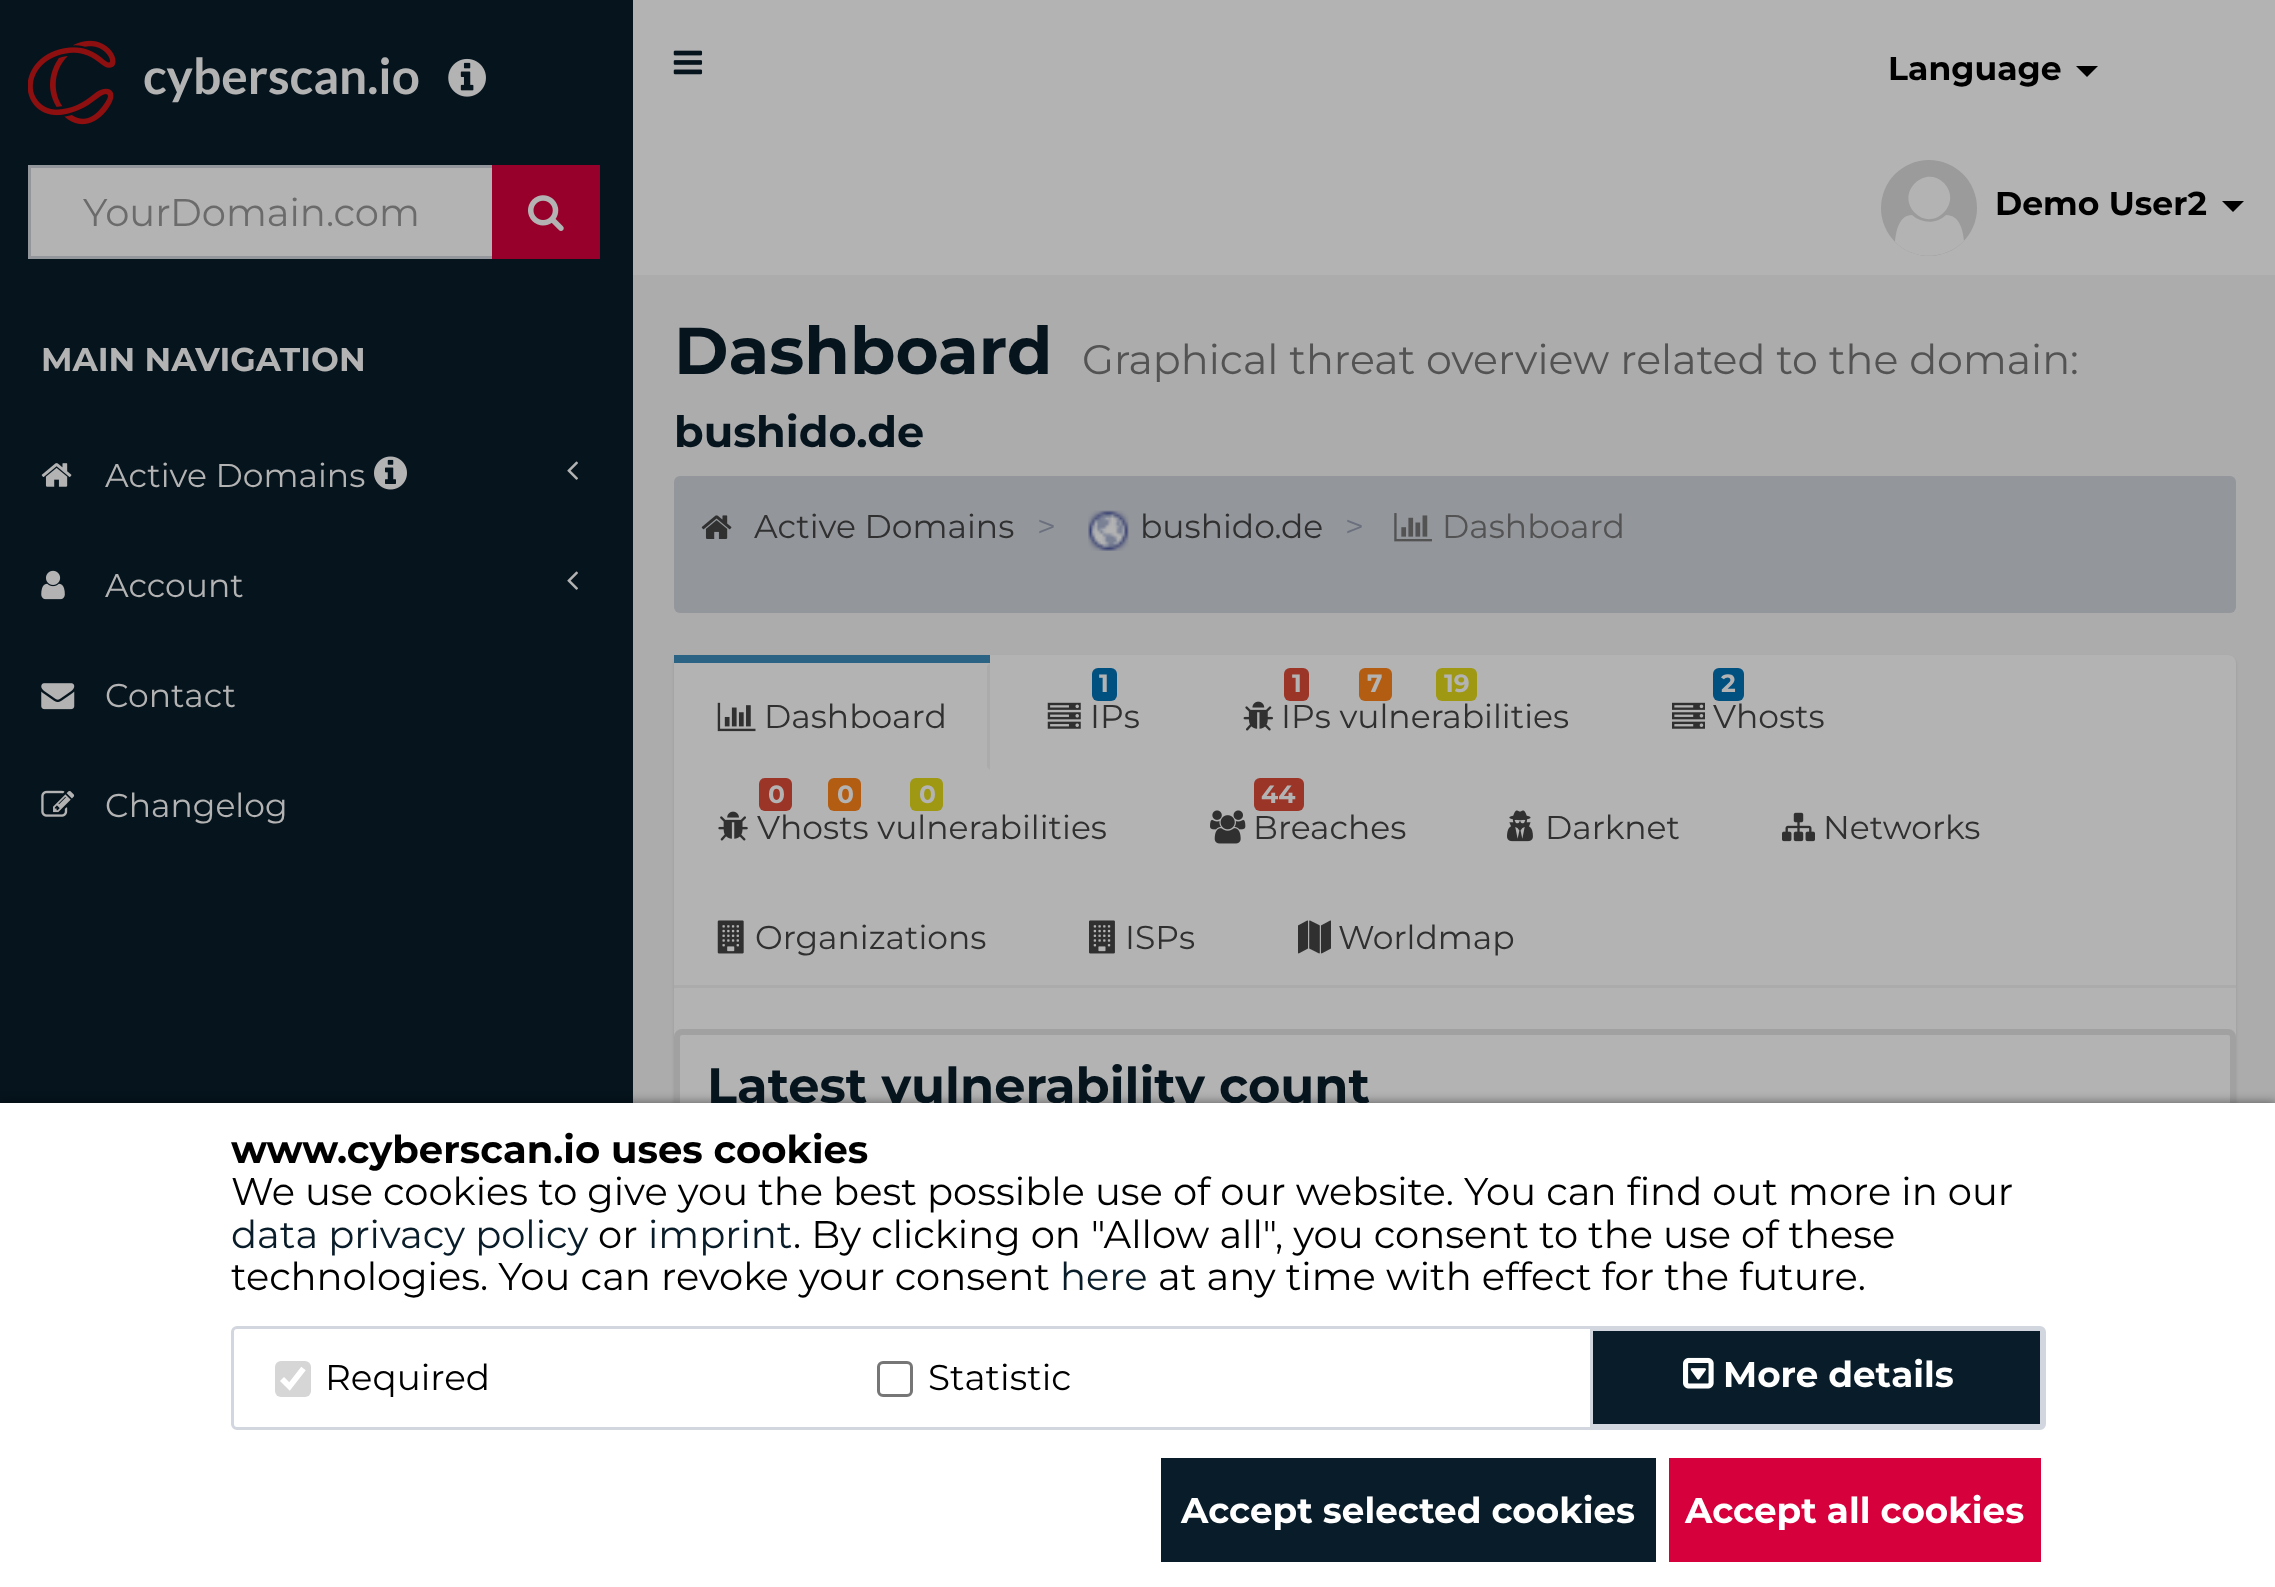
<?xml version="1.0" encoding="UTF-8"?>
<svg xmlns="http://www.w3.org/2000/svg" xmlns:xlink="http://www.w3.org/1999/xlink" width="2275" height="1587">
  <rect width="100%" height="100%" fill="#b3b3b3" />
  <rect width="633" height="1103" fill="#06141d" />
  <image x="28" y="40" width="88" height="85" xlink:href="image1.png" />
  <image x="448" y="58" width="38" height="39" xlink:href="image2.png" />
  <image x="673" y="50" width="30" height="25" xlink:href="image3.png" />
  <path d="M 2076 66 h 22 l -11 11 z" fill="#000000" />
  <circle cx="1929" cy="208" r="48" fill="#9b9b9b" />
  <path d="M 1964 241 c -19 19 -50 20 -69 1 c 1 -11 4 -27 17 -27 c 10 9 25 9 34 0 c 13 0 17 14 18 26 z m -20 -58 c -19 -19 -49 10 -29 30 c 19 19 48 -10 29 -30 z" fill="#b3b3b3" fill-rule="evenodd" />
  <path d="M 2222 201 h 22 l -11 11 z" fill="#000000" />
  <rect x="29.5" y="166.5" width="464" height="91" fill="#b3b3b3" stroke="#93969b" stroke-width="3" />
  <rect x="492" y="165" width="108" height="94" fill="#96002a" />
  <image x="528" y="195" width="36" height="36" xlink:href="image4.png" />
  <image x="41" y="463" width="31" height="24" xlink:href="image5.png" />
  <image x="374" y="456" width="33" height="34" xlink:href="image6.png" />
  <image x="567" y="461" width="11" height="19" xlink:href="image7.png" />
  <image x="41" y="570" width="24" height="30" xlink:href="image8.png" />
  <image x="567" y="571" width="11" height="19" xlink:href="image7.png" />
  <image x="41" y="683" width="34" height="27" xlink:href="image9.png" />
  <image x="41" y="790" width="34" height="27" xlink:href="image10.png" />
  <rect x="633" y="275" width="1642" height="828" fill="#acacac" />
  <rect x="674" y="476" width="1562" height="137" rx="6" fill="#93969b" />
  <image x="701" y="515" width="31" height="24" xlink:href="image11.png" />
  <image x="1088" y="510" width="41" height="41" xlink:href="image12.png" />
  <image x="1394" y="513" width="38" height="29" xlink:href="image13.png" />
  <rect x="674" y="657" width="1562" height="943" rx="8" fill="#000000" fill-opacity="0.1" filter="blur(1.5px)" />
  <rect x="674" y="655" width="1562" height="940" rx="8" fill="#b3b3b3" />
  <rect x="674" y="985" width="1562" height="3" fill="#ababab" />
  <rect x="674" y="655" width="316" height="8" fill="#2a6384" />
  <path d="M 990 663 v 107 l -3 -3 v -101 z" fill="#ababab" />
  <image x="717" y="702" width="39" height="30" xlink:href="image14.png" />
  <rect x="1092" y="668" width="25" height="33" rx="6" fill="#005180" />
  <image x="1047" y="702" width="34" height="27" xlink:href="image15.png" />
  <rect x="1284" y="668" width="25" height="33" rx="6" fill="#9b3528" />
  <rect x="1359" y="668" width="33" height="33" rx="6" fill="#b35d13" />
  <rect x="1436" y="668" width="41" height="33" rx="6" fill="#9f9812" />
  <image x="1243" y="701" width="30" height="30" xlink:href="image16.png" />
  <rect x="1713" y="668" width="31" height="33" rx="6" fill="#005180" />
  <image x="1672" y="702" width="33" height="27" xlink:href="image17.png" />
  <rect x="759" y="778" width="33" height="33" rx="6" fill="#9b3528" />
  <rect x="828" y="778" width="33" height="33" rx="6" fill="#b35d13" />
  <rect x="910" y="778" width="33" height="33" rx="6" fill="#9f9812" />
  <image x="718" y="811" width="30" height="30" xlink:href="image18.png" />
  <rect x="1254" y="778" width="50" height="33" rx="6" fill="#9b3528" />
  <image x="1210" y="810" width="36" height="34" xlink:href="image19.png" />
  <image x="1507" y="810" width="26" height="32" xlink:href="image20.png" />
  <image x="1782" y="812" width="33" height="30" xlink:href="image21.png" />
  <image x="717" y="920" width="27" height="34" xlink:href="image22.png" />
  <image x="1089" y="920" width="26" height="34" xlink:href="image23.png" />
  <image x="1298" y="920" width="33" height="34" xlink:href="image24.png" />
  <rect x="677" y="1032" width="1556" height="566" rx="5" fill="none" stroke="#a1a1a1" stroke-width="6" />
  <rect y="1103" width="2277" height="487" fill="#000000" fill-opacity="0.5" filter="blur(5.5px)" />
  <text x="143" y="94" style="font-family: Lato; font-size: 49.5px; font-weight: bold; fill: #b3b3b3">cyberscan.io</text>
  <text x="1888" y="80" style="font-family: Montserrat; font-size: 33px; font-weight: 100; fill: #000000">Language</text>
  <text x="1995" y="215" style="font-family: Montserrat; font-size: 33px; font-weight: 100; fill: #000000">Demo User2</text>
  <text x="83" y="226" style="font-family: 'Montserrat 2'; font-size: 38.5px; font-weight: 100; fill: #6b6b6b">YourDomain.com</text>
  <text x="41" y="371" style="font-family: Montserrat; font-size: 33px; font-weight: 100; fill: #b3b3b3">MAIN NAVIGATION</text>
  <text x="105" y="487" style="font-family: 'Montserrat 2'; font-size: 33px; font-weight: 100; fill: #b3b3b3">Active Domains</text>
  <text x="105" y="597" style="font-family: 'Montserrat 2'; font-size: 33px; font-weight: 100; fill: #b3b3b3">Account</text>
  <text x="105" y="707" style="font-family: 'Montserrat 2'; font-size: 33px; font-weight: 100; fill: #b3b3b3">Contact</text>
  <text x="105" y="817" style="font-family: 'Montserrat 2'; font-size: 33px; font-weight: 100; fill: #b3b3b3">Changelog</text>
  <text x="674" y="374" style="font-family: Montserrat; font-size: 66px; font-weight: 100; fill: #06141d">Dashboard</text>
  <text x="1082" y="374" style="font-family: 'Montserrat 2'; font-size: 41.25px; font-weight: 100; fill: #535353">Graphical threat overview related to the domain:</text>
  <text x="674" y="447" style="font-family: Montserrat; font-size: 43px; font-weight: 100; fill: #06141d">bushido.de</text>
  <text x="754" y="538" style="font-family: 'Montserrat 2'; font-size: 33px; font-weight: 100; fill: #303030">Active Domains</text>
  <text x="1037" y="538" style="font-family: 'Montserrat 2'; font-size: 33px; font-weight: 100; fill: #6a707d">&gt;</text>
  <text x="1140" y="538" style="font-family: 'Montserrat 2'; font-size: 33px; font-weight: 100; fill: #303030">bushido.de</text>
  <text x="1345" y="538" style="font-family: 'Montserrat 2'; font-size: 33px; font-weight: 100; fill: #6a707d">&gt;</text>
  <text x="1442" y="538" style="font-family: 'Montserrat 2'; font-size: 33px; font-weight: 100; fill: #535353">Dashboard</text>
  <text x="764" y="728" style="font-family: 'Montserrat 2'; font-size: 33px; font-weight: 100; fill: #303030">Dashboard</text>
  <text x="1099" y="692" style="font-family: Montserrat; font-size: 25px; font-weight: 100; fill: #b3b3b3">1</text>
  <text x="1090" y="728" style="font-family: 'Montserrat 2'; font-size: 33px; font-weight: 100; fill: #303030">IPs</text>
  <text x="1292" y="692" style="font-family: Montserrat; font-size: 25px; font-weight: 100; fill: #b3b3b3">1</text>
  <text x="1367" y="692" style="font-family: Montserrat; font-size: 25px; font-weight: 100; fill: #b3b3b3">7</text>
  <text x="1444" y="692" style="font-family: Montserrat; font-size: 25px; font-weight: 100; fill: #b3b3b3">19</text>
  <text x="1281" y="728" style="font-family: 'Montserrat 2'; font-size: 33px; font-weight: 100; fill: #303030">IPs vulnerabilities</text>
  <text x="1721" y="692" style="font-family: Montserrat; font-size: 25px; font-weight: 100; fill: #b3b3b3">2</text>
  <text x="1713" y="728" style="font-family: 'Montserrat 2'; font-size: 33px; font-weight: 100; fill: #303030">Vhosts</text>
  <text x="768" y="803" style="font-family: Montserrat; font-size: 25px; font-weight: 100; fill: #b3b3b3">0</text>
  <text x="837" y="803" style="font-family: Montserrat; font-size: 25px; font-weight: 100; fill: #b3b3b3">0</text>
  <text x="919" y="803" style="font-family: Montserrat; font-size: 25px; font-weight: 100; fill: #b3b3b3">0</text>
  <text x="757" y="839" style="font-family: 'Montserrat 2'; font-size: 33px; font-weight: 100; fill: #303030">Vhosts vulnerabilities</text>
  <text x="1261" y="803" style="font-family: Montserrat; font-size: 25px; font-weight: 100; fill: #b3b3b3">44</text>
  <text x="1253" y="839" style="font-family: 'Montserrat 2'; font-size: 33px; font-weight: 100; fill: #303030">Breaches</text>
  <text x="1545" y="839" style="font-family: 'Montserrat 2'; font-size: 33px; font-weight: 100; fill: #303030">Darknet</text>
  <text x="1823" y="839" style="font-family: 'Montserrat 2'; font-size: 33px; font-weight: 100; fill: #303030">Networks</text>
  <text x="755" y="949" style="font-family: 'Montserrat 2'; font-size: 33px; font-weight: 100; fill: #303030">Organizations</text>
  <text x="1125" y="949" style="font-family: 'Montserrat 2'; font-size: 33px; font-weight: 100; fill: #303030">ISPs</text>
  <text x="1338" y="949" style="font-family: 'Montserrat 2'; font-size: 33px; font-weight: 100; fill: #303030">Worldmap</text>
  <text x="707" y="1103" style="font-family: Montserrat; font-size: 49.5px; font-weight: 100; fill: #06141d">Latest vulnerability count</text>
  <rect y="1103" width="2275" height="484" fill="#ffffff" />
  <text x="231" y="1163" style="font-family: Montserrat; font-size: 38.5px; font-weight: 100; fill: #000000">www.cyberscan.io uses cookies</text>
  <text x="231" y="1205" style="font-family: 'Montserrat 2'; font-size: 38.5px; font-weight: 100; fill: #000000">We use cookies to give you the best possible use of our website. You can find out more in our</text>
  <text x="231" y="1248" style="font-family: 'Montserrat 2'; font-size: 38.5px; font-weight: 100; fill: #091c29">data privacy policy</text>
  <text x="598" y="1248" style="font-family: 'Montserrat 2'; font-size: 38.5px; font-weight: 100; fill: #000000">or</text>
  <text x="648" y="1248" style="font-family: 'Montserrat 2'; font-size: 38.5px; font-weight: 100; fill: #091c29">imprint</text>
  <text x="793" y="1248" style="font-family: 'Montserrat 2'; font-size: 38.5px; font-weight: 100; fill: #000000">. By clicking on "Allow all", you consent to the use of these</text>
  <text x="231" y="1290" style="font-family: 'Montserrat 2'; font-size: 38.5px; font-weight: 100; fill: #000000">technologies. You can revoke your consent</text>
  <text x="1060" y="1290" style="font-family: 'Montserrat 2'; font-size: 38.5px; font-weight: 100; fill: #091c29">here</text>
  <text x="1158" y="1290" style="font-family: 'Montserrat 2'; font-size: 38.5px; font-weight: 100; fill: #000000">at any time with effect for the future.</text>
  <rect x="232.5" y="1327.5" width="1812" height="101" rx="4.5" fill="none" stroke="#d2d6de" stroke-width="3" />
  <rect x="275" y="1361" width="36" height="36" rx="6" fill="#d6d6d6" />
  <path d="M 282 1379 l 7.5 7.5 l 14 -18" fill="none" stroke="#ffffff" stroke-width="5.7" />
  <text x="325" y="1390" style="font-family: 'Montserrat 2'; font-size: 35.75px; font-weight: 100; fill: #000000">Required</text>
  <rect x="878.5" y="1362.5" width="33" height="33" rx="4.5" fill="none" stroke="#767676" stroke-width="3" />
  <text x="928" y="1390" style="font-family: 'Montserrat 2'; font-size: 35.75px; font-weight: 100; fill: #000000">Statistic</text>
  <rect x="1591.5" y="1329.5" width="450" height="96" fill="#091c29" stroke="#d2d6de" stroke-width="3" />
  <image x="1683" y="1357" width="31" height="32" xlink:href="image25.png" />
  <text x="1723" y="1387" style="font-family: Montserrat; font-size: 35.75px; font-weight: 100; fill: #ffffff">More details</text>
  <rect x="1161" y="1458" width="495" height="104" fill="#091c29" />
  <text x="1181" y="1523" style="font-family: Montserrat; font-size: 35.75px; font-weight: 100; fill: #ffffff">Accept selected cookies</text>
  <rect x="1669" y="1458" width="372" height="104" fill="#d6003c" />
  <text x="1685" y="1523" style="font-family: Montserrat; font-size: 35.75px; font-weight: 100; fill: #ffffff">Accept all cookies</text>
</svg>
